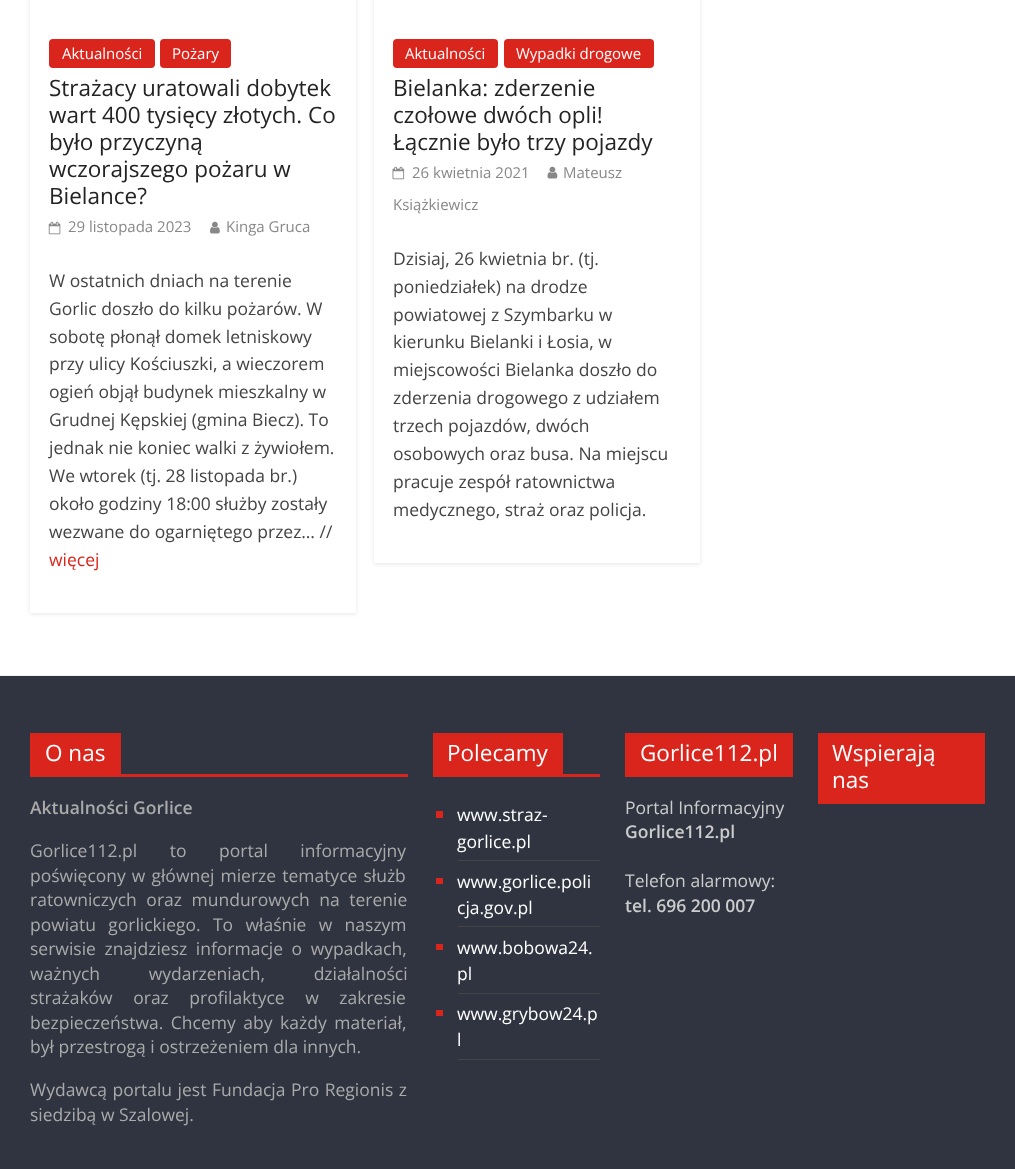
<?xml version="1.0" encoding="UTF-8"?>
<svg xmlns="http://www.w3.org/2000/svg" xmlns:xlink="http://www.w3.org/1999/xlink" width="1015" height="1169">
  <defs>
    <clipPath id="clip1"><path d="M 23 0 h 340 v 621 h -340 z m 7 -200 h 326 v 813 h -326 z" clip-rule="evenodd" /></clipPath>
    <clipPath id="clip2"><path d="M 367 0 h 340 v 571 h -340 z m 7 -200 h 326 v 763 h -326 z" clip-rule="evenodd" /></clipPath>
  </defs>
  <rect width="100%" height="100%" fill="#ffffff" />
  <g clip-path="url(#clip1)">
    <rect x="30" y="-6" width="326" height="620" fill="#000000" fill-opacity="0.1" filter="blur(2px)" />
  </g>
  <rect x="49" y="39" width="106" height="29" rx="4" fill="#da251d" />
  <rect x="160" y="39" width="71" height="29" rx="4" fill="#da251d" />
  <image x="48" y="221" width="13" height="14" xlink:href="image1.png" />
  <image x="210" y="221" width="10" height="13" xlink:href="image2.png" />
  <g clip-path="url(#clip2)">
    <rect x="374" y="-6" width="326" height="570" fill="#000000" fill-opacity="0.1" filter="blur(2px)" />
  </g>
  <rect x="393" y="39" width="105" height="29" rx="4" fill="#da251d" />
  <rect x="504" y="39" width="150" height="29" rx="4" fill="#da251d" />
  <image x="392" y="166" width="13" height="14" xlink:href="image3.png" />
  <image x="547" y="166" width="11" height="13" xlink:href="image4.png" />
  <rect y="676" width="1015" height="493" fill="#303440" />
  <rect y="675" width="1015" height="1" fill="#f2f2f2" />
  <rect x="30" y="774" width="378" height="3" fill="#da251d" />
  <rect x="30" y="733" width="91" height="41" fill="#da251d" />
  <rect x="433" y="774" width="167" height="3" fill="#da251d" />
  <rect x="433" y="733" width="130" height="41" fill="#da251d" />
  <rect x="458" y="860" width="142" height="1" fill="#444444" />
  <rect x="436" y="811" width="7" height="7" fill="#da251d" />
  <rect x="458" y="926" width="142" height="1" fill="#444444" />
  <rect x="436" y="878" width="7" height="6" fill="#da251d" />
  <rect x="458" y="993" width="142" height="1" fill="#444444" />
  <rect x="436" y="944" width="7" height="6" fill="#da251d" />
  <rect x="458" y="1059" width="142" height="1" fill="#444444" />
  <rect x="436" y="1010" width="7" height="6" fill="#da251d" />
  <rect x="625" y="733" width="168" height="44" fill="#da251d" />
  <rect x="818" y="733" width="167" height="71" fill="#da251d" />
  <text x="62" y="59" style="font-family: Open Sans; font-size: 15px; fill: #ffffff">Aktualności</text>
  <text x="172" y="59" style="font-family: Open Sans; font-size: 15px; fill: #ffffff">Pożary</text>
  <text x="49" y="96" style="font-family: Open Sans; font-size: 22.5px; fill: #232323">Strażacy uratowali dobytek</text>
  <text x="49" y="123" style="font-family: Open Sans; font-size: 22.5px; fill: #232323">wart 400 tysięcy złotych. Co</text>
  <text x="49" y="150" style="font-family: Open Sans; font-size: 22.5px; fill: #232323">było przyczyną</text>
  <text x="49" y="177" style="font-family: Open Sans; font-size: 22.5px; fill: #232323">wczorajszego pożaru w</text>
  <text x="49" y="204" style="font-family: Open Sans; font-size: 22.5px; fill: #232323">Bielance?</text>
  <text x="68" y="232" style="font-family: Open Sans; font-size: 15px; fill: #888888">29 listopada 2023</text>
  <text x="226" y="232" style="font-family: Open Sans; font-size: 15px; fill: #888888">Kinga Gruca</text>
  <text x="49" y="287" style="font-family: Open Sans; font-size: 17.5px; fill: #444444">W ostatnich dniach na terenie</text>
  <text x="49" y="315" style="font-family: Open Sans; font-size: 17.5px; fill: #444444">Gorlic doszło do kilku pożarów. W</text>
  <text x="49" y="343" style="font-family: Open Sans; font-size: 17.5px; fill: #444444">sobotę płonął domek letniskowy</text>
  <text x="49" y="370" style="font-family: Open Sans; font-size: 17.5px; fill: #444444">przy ulicy Kościuszki, a wieczorem</text>
  <text x="49" y="398" style="font-family: Open Sans; font-size: 17.5px; fill: #444444">ogień objął budynek mieszkalny w</text>
  <text x="49" y="426" style="font-family: Open Sans; font-size: 17.5px; fill: #444444">Grudnej Kępskiej (gmina Biecz). To</text>
  <text x="49" y="454" style="font-family: Open Sans; font-size: 17.5px; fill: #444444">jednak nie koniec walki z żywiołem.</text>
  <text x="49" y="482" style="font-family: Open Sans; font-size: 17.5px; fill: #444444">We wtorek (tj. 28 listopada br.)</text>
  <text x="49" y="510" style="font-family: Open Sans; font-size: 17.5px; fill: #444444">około godziny 18:00 służby zostały</text>
  <text x="49" y="538" style="font-family: Open Sans; font-size: 17.5px; fill: #444444">wezwane do ogarniętego przez… //</text>
  <text x="49" y="566" style="font-family: Open Sans; font-size: 17.5px; fill: #da251d">więcej</text>
  <text x="405" y="59" style="font-family: Open Sans; font-size: 15px; fill: #ffffff">Aktualności</text>
  <text x="516" y="59" style="font-family: Open Sans; font-size: 15px; fill: #ffffff">Wypadki drogowe</text>
  <text x="393" y="96" style="font-family: Open Sans; font-size: 22.5px; fill: #232323">Bielanka: zderzenie</text>
  <text x="393" y="123" style="font-family: Open Sans; font-size: 22.5px; fill: #232323">czołowe dwóch opli!</text>
  <text x="393" y="150" style="font-family: Open Sans; font-size: 22.5px; fill: #232323">Łącznie było trzy pojazdy</text>
  <text x="412" y="178" style="font-family: Open Sans; font-size: 15px; fill: #888888">26 kwietnia 2021</text>
  <text x="563" y="178" style="font-family: Open Sans; font-size: 15px; fill: #888888">Mateusz</text>
  <text x="393" y="210" style="font-family: Open Sans; font-size: 15px; fill: #888888">Książkiewicz</text>
  <text x="393" y="265" style="font-family: Open Sans; font-size: 17.5px; fill: #444444">Dzisiaj, 26 kwietnia br. (tj.</text>
  <text x="393" y="293" style="font-family: Open Sans; font-size: 17.5px; fill: #444444">poniedziałek) na drodze</text>
  <text x="393" y="321" style="font-family: Open Sans; font-size: 17.5px; fill: #444444">powiatowej z Szymbarku w</text>
  <text x="393" y="348" style="font-family: Open Sans; font-size: 17.5px; fill: #444444">kierunku Bielanki i Łosia, w</text>
  <text x="393" y="376" style="font-family: Open Sans; font-size: 17.5px; fill: #444444">miejscowości Bielanka doszło do</text>
  <text x="393" y="404" style="font-family: Open Sans; font-size: 17.5px; fill: #444444">zderzenia drogowego z udziałem</text>
  <text x="393" y="432" style="font-family: Open Sans; font-size: 17.5px; fill: #444444">trzech pojazdów, dwóch</text>
  <text x="393" y="460" style="font-family: Open Sans; font-size: 17.5px; fill: #444444">osobowych oraz busa. Na miejscu</text>
  <text x="393" y="488" style="font-family: Open Sans; font-size: 17.5px; fill: #444444">pracuje zespół ratownictwa</text>
  <text x="393" y="516" style="font-family: Open Sans; font-size: 17.5px; fill: #444444">medycznego, straż oraz policja.</text>
  <text x="45" y="761" style="font-family: Open Sans; font-size: 22.5px; fill: #ffffff">O nas</text>
  <text x="30" y="814" style="font-family: Open Sans; font-size: 17.5px; font-weight: 600; fill: #aaaaaa">Aktualności Gorlice</text>
  <text x="30" y="857" word-spacing="28" style="font-family: Open Sans; font-size: 17.5px; fill: #aaaaaa">Gorlice112.pl to portal informacyjny</text>
  <text x="30" y="882" word-spacing="1.5" style="font-family: Open Sans; font-size: 17.5px; fill: #aaaaaa">poświęcony w głównej mierze tematyce służb</text>
  <text x="30" y="906" word-spacing="5" style="font-family: Open Sans; font-size: 17.5px; fill: #aaaaaa">ratowniczych oraz mundurowych na terenie</text>
  <text x="30" y="931" word-spacing="7.75" style="font-family: Open Sans; font-size: 17.5px; fill: #aaaaaa">powiatu gorlickiego. To właśnie w naszym</text>
  <text x="30" y="955" word-spacing="4" style="font-family: Open Sans; font-size: 17.5px; fill: #aaaaaa">serwisie znajdziesz informacje o wypadkach,</text>
  <text x="30" y="980" word-spacing="44" style="font-family: Open Sans; font-size: 17.5px; fill: #aaaaaa">ważnych wydarzeniach, działalności</text>
  <text x="30" y="1004" word-spacing="16" style="font-family: Open Sans; font-size: 17.5px; fill: #aaaaaa">strażaków oraz profilaktyce w zakresie</text>
  <text x="30" y="1029" word-spacing="3" style="font-family: Open Sans; font-size: 17.5px; fill: #aaaaaa">bezpieczeństwa. Chcemy aby każdy materiał,</text>
  <text x="30" y="1053" style="font-family: Open Sans; font-size: 17.5px; fill: #aaaaaa">był przestrogą i ostrzeżeniem dla innych.</text>
  <text x="30" y="1096" word-spacing="1" style="font-family: Open Sans; font-size: 17.5px; fill: #aaaaaa">Wydawcą portalu jest Fundacja Pro Regionis z</text>
  <text x="30" y="1121" style="font-family: Open Sans; font-size: 17.5px; fill: #aaaaaa">siedzibą w Szalowej.</text>
  <text x="447" y="761" style="font-family: Open Sans; font-size: 22.5px; fill: #ffffff">Polecamy</text>
  <text x="457" y="821" style="font-family: Open Sans; font-size: 17.5px; fill: #ffffff">www.straz-</text>
  <text x="457" y="848" style="font-family: Open Sans; font-size: 17.5px; fill: #ffffff">gorlice.pl</text>
  <text x="457" y="888" style="font-family: Open Sans; font-size: 17.5px; fill: #ffffff">www.gorlice.poli</text>
  <text x="457" y="914" style="font-family: Open Sans; font-size: 17.5px; fill: #ffffff">cja.gov.pl</text>
  <text x="457" y="954" style="font-family: Open Sans; font-size: 17.5px; fill: #ffffff">www.bobowa24.</text>
  <text x="457" y="980" style="font-family: Open Sans; font-size: 17.5px; fill: #ffffff">pl</text>
  <text x="457" y="1020" style="font-family: Open Sans; font-size: 17.5px; fill: #ffffff">www.grybow24.p</text>
  <text x="457" y="1046" style="font-family: Open Sans; font-size: 17.5px; fill: #ffffff">l</text>
  <text x="640" y="761" style="font-family: Open Sans; font-size: 22.5px; fill: #ffffff">Gorlice112.pl</text>
  <text x="625" y="814" style="font-family: Open Sans; font-size: 17.5px; fill: #cccccc">Portal Informacyjny</text>
  <text x="625" y="838" style="font-family: Open Sans; font-size: 17.5px; font-weight: 600; fill: #cccccc">Gorlice112.pl</text>
  <text x="625" y="887" style="font-family: Open Sans; font-size: 17.5px; fill: #cccccc">Telefon alarmowy:</text>
  <text x="625" y="912" style="font-family: Open Sans; font-size: 17.5px; font-weight: 600; fill: #cccccc">tel. 696 200 007</text>
  <text x="832" y="761" style="font-family: Open Sans; font-size: 22.5px; fill: #ffffff">Wspierają</text>
  <text x="832" y="788" style="font-family: Open Sans; font-size: 22.5px; fill: #ffffff">nas</text>
</svg>
